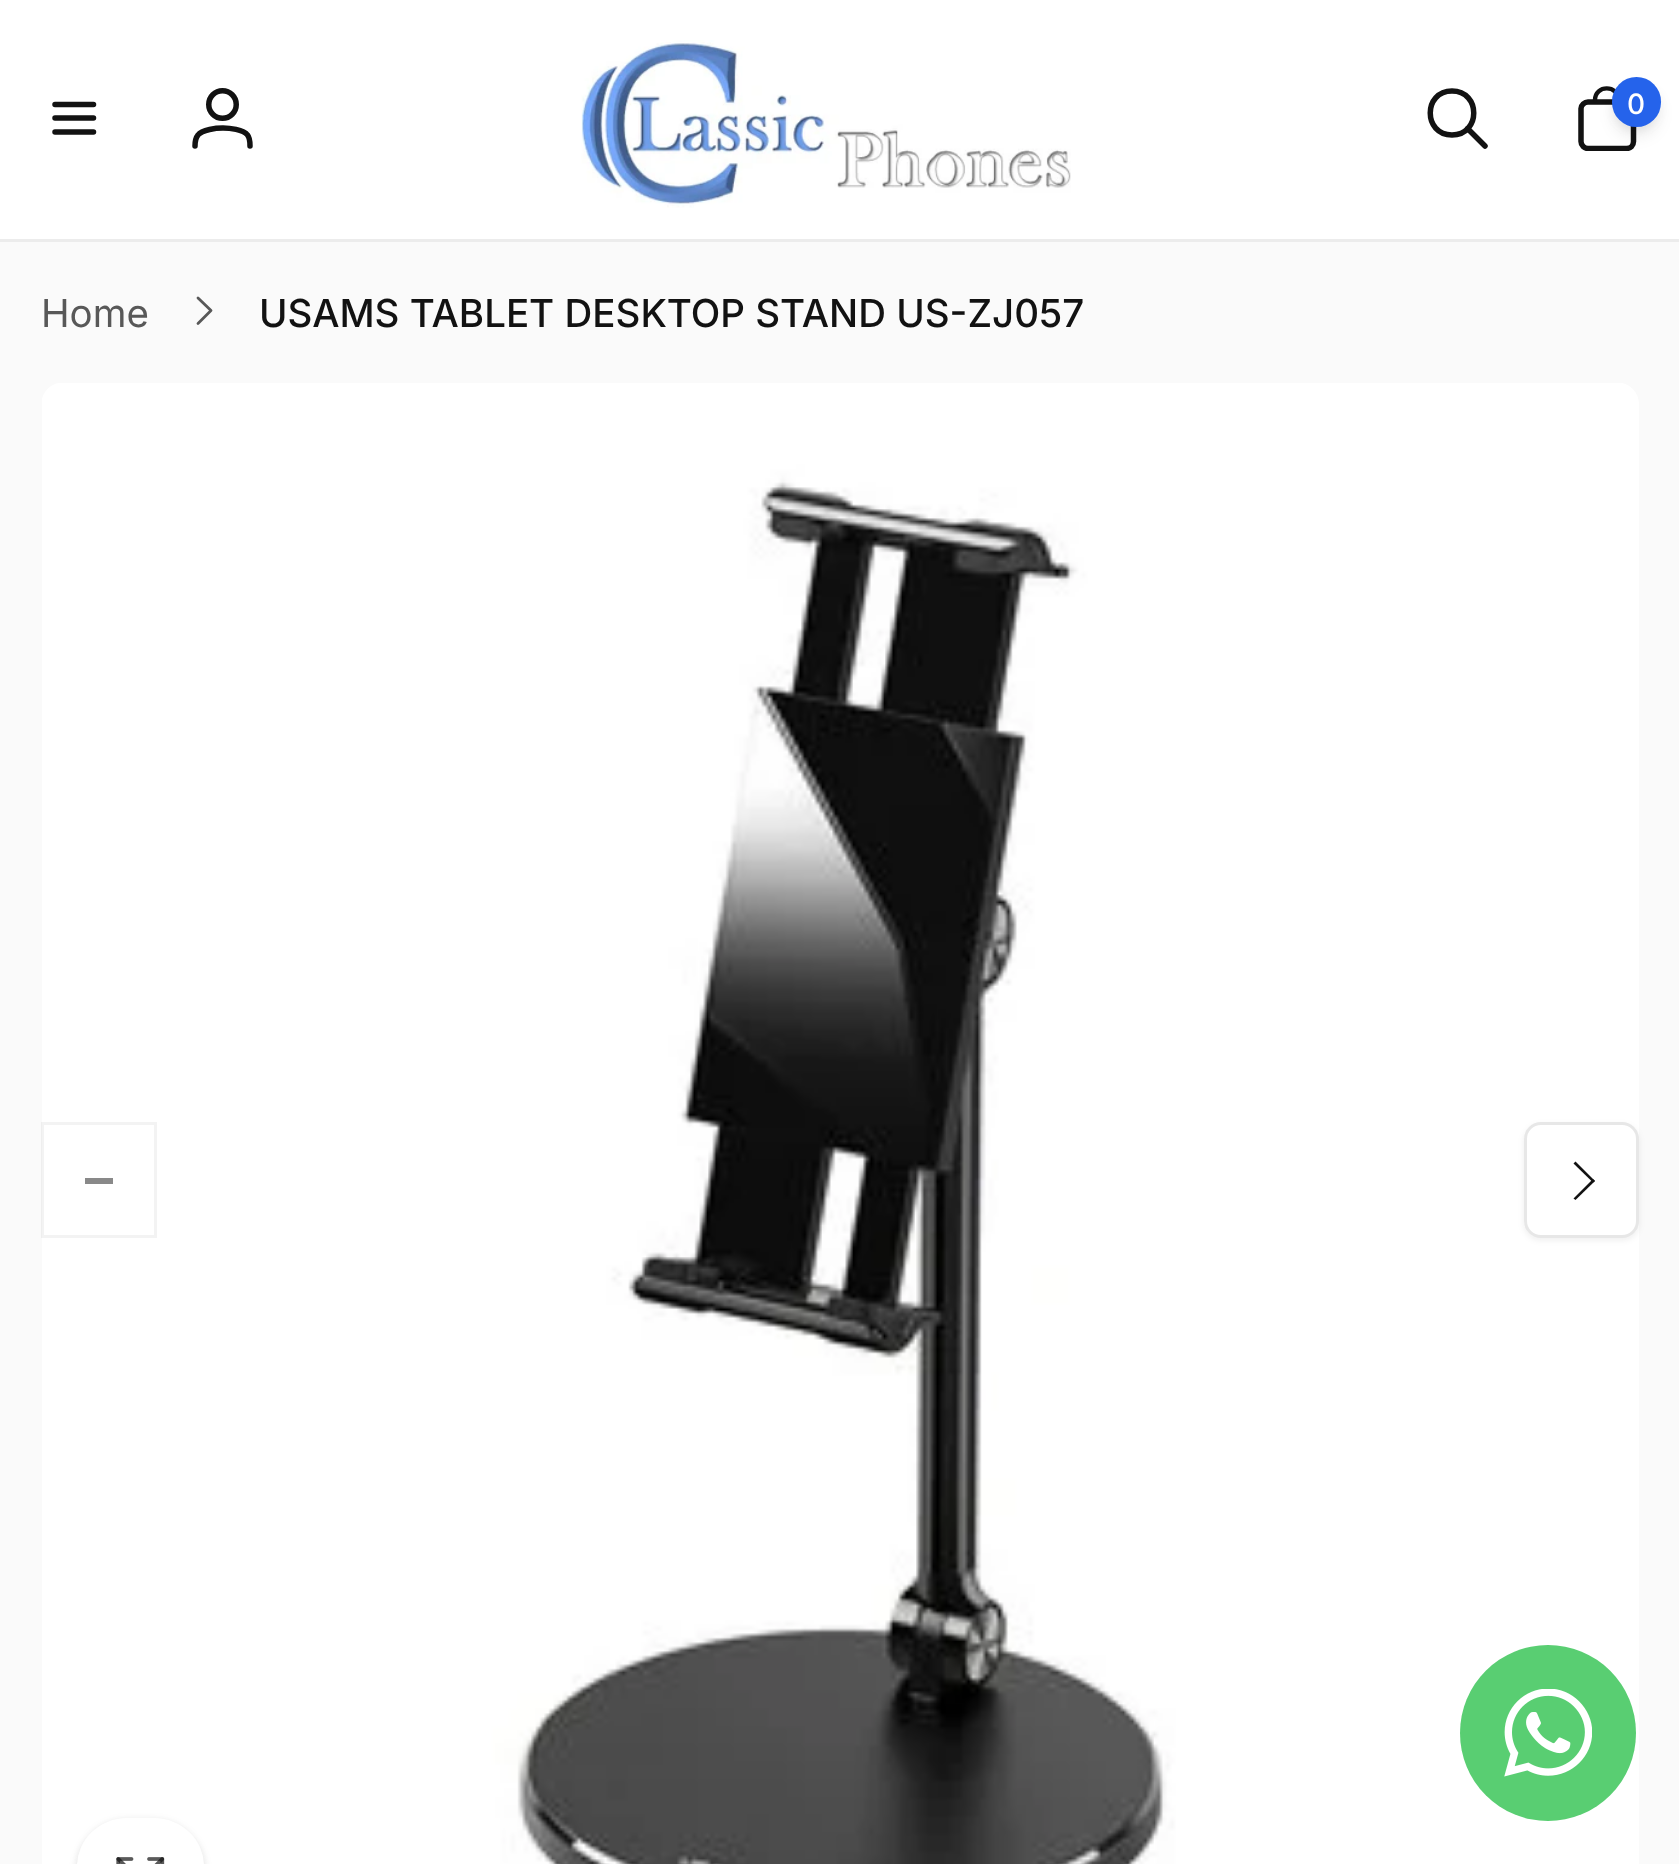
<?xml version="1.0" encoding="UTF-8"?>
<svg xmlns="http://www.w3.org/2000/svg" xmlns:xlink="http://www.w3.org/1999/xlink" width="1679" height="1864">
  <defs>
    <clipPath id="clip1"><rect x="1573" y="85" width="66" height="66" /></clipPath>
    <clipPath id="clip2"><path d="M 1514 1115 h 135 v 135 h -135 z m 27 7 h 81 c 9.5 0 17 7.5 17 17 v 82 c 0 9.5 -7.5 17 -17 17 h -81 c -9.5 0 -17 -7.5 -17 -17 v -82 c 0 -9.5 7.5 -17 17 -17 z" clip-rule="evenodd" /></clipPath>
  </defs>
  <rect width="100%" height="100%" fill="#ffffff" />
  <rect y="239" width="1679" height="3" fill="#ececec" />
  <path d="M 55 104.5 h 38.5 m -38.5 13.5 h 38.5 m -38.5 14 h 38.5" fill="none" stroke="#121212" stroke-width="5.5" stroke-linecap="round" />
  <circle cx="222.5" cy="104.5" r="13.75" fill="none" stroke="#121212" stroke-width="5.5" />
  <path d="M 223 128 c 6 0 20.5 1.5 24.5 7 c 2.5 3 2.5 6.5 2.5 11 m -27 -18 c -6.5 0 -21 1.5 -25 7 c -2.5 3 -3 6.5 -3 11" fill="none" stroke="#121212" stroke-width="5.5" stroke-linecap="round" />
  <image x="581" y="40" width="490" height="168" xlink:href="image1.png" />
  <path d="M 1485 146 l -17.5 -17.5 m -15.5 6.5 c 29 0 29 -44 0 -44 c -29 0 -29 44 0 44 z" fill="none" stroke="#121212" stroke-width="5.5" stroke-linecap="round" stroke-linejoin="round" />
  <g clip-path="url(#clip1)">
    <path d="M 1626.5 102 h -38.5 c -3.5 0 -7 3 -7 6.5 v 33 c 0 4 3.5 7 7 7 h 38.5 c 4 0 7 -3 7 -7 v -33 c 0 -3.5 -3 -6.5 -7 -6.5 z" fill="none" stroke="#121212" stroke-width="5.5" />
  </g>
  <path d="M 1595 100 c 0 -15.5 23.5 -15.5 23.5 0" fill="none" stroke="#121212" stroke-width="4.4" stroke-linecap="round" stroke-linejoin="round" />
  <rect x="1614" y="85" width="44" height="44" rx="22" fill="#121212" fill-opacity="0.06" filter="blur(5.5px)" />
  <rect x="1614" y="91" width="44" height="44" rx="22" fill="#121212" fill-opacity="0.1" filter="blur(8px)" />
  <rect x="1612" y="77" width="49" height="50" rx="24.5" fill="#2563eb" />
  <rect y="242" width="1679" height="1622" fill="#fafafa" />
  <path d="M 198 298 l 13 12.5 l -13 13" fill="none" stroke="#585858" stroke-width="2.8" stroke-linecap="round" stroke-linejoin="round" />
  <image x="42" y="383" width="1597" height="1481" xlink:href="image2.png" />
  <rect x="77" y="1821" width="127" height="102" rx="50" fill="#121212" fill-opacity="0.06" filter="blur(3px)" />
  <rect x="77" y="1821" width="127" height="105" rx="50" fill="#121212" fill-opacity="0.1" filter="blur(4px)" />
  <rect x="77" y="1818" width="127" height="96" rx="50" fill="#ffffff" />
  <image x="116" y="1857" width="49" height="7" xlink:href="image3.png" />
  <rect x="42.5" y="1123.5" width="113" height="113" fill="none" stroke="#121212" stroke-opacity="0.05" stroke-width="3" />
  <rect x="85" y="1178" width="28" height="6" fill="#898989" />
  <g clip-path="url(#clip2)">
    <rect x="1524" y="1125" width="115" height="115" rx="17" fill="#121212" fill-opacity="0.07" filter="blur(3px)" />
  </g>
  <rect x="1525.5" y="1123.5" width="112" height="113" rx="15.5" fill="none" stroke="#121212" stroke-opacity="0.1" stroke-width="3" />
  <path d="M 1573.5 1163.5 l 2 -2 l 19.5 19.5 l -2 1.5 z" fill="#121212" />
  <path d="M 1593 1179 l 2 2 l -19.5 19 l -2 -1.5 z" fill="#121212" />
  <circle cx="1548" cy="1733" r="88" fill="#59ce72" />
  <image x="1504" y="1689" width="88" height="88" xlink:href="image4.png" />
  <text x="1627" y="114" style="font-family: Inter; font-size: 28px; font-weight: 500; fill: #ffffff">0</text>
  <text x="41" y="327" style="font-family: Inter; font-size: 38.5px; fill: #585858">Home</text>
  <text x="259" y="327" style="font-family: Inter; font-size: 38.5px; font-weight: 500; fill: #121212">USAMS TABLET DESKTOP STAND US-ZJ057</text>
</svg>
